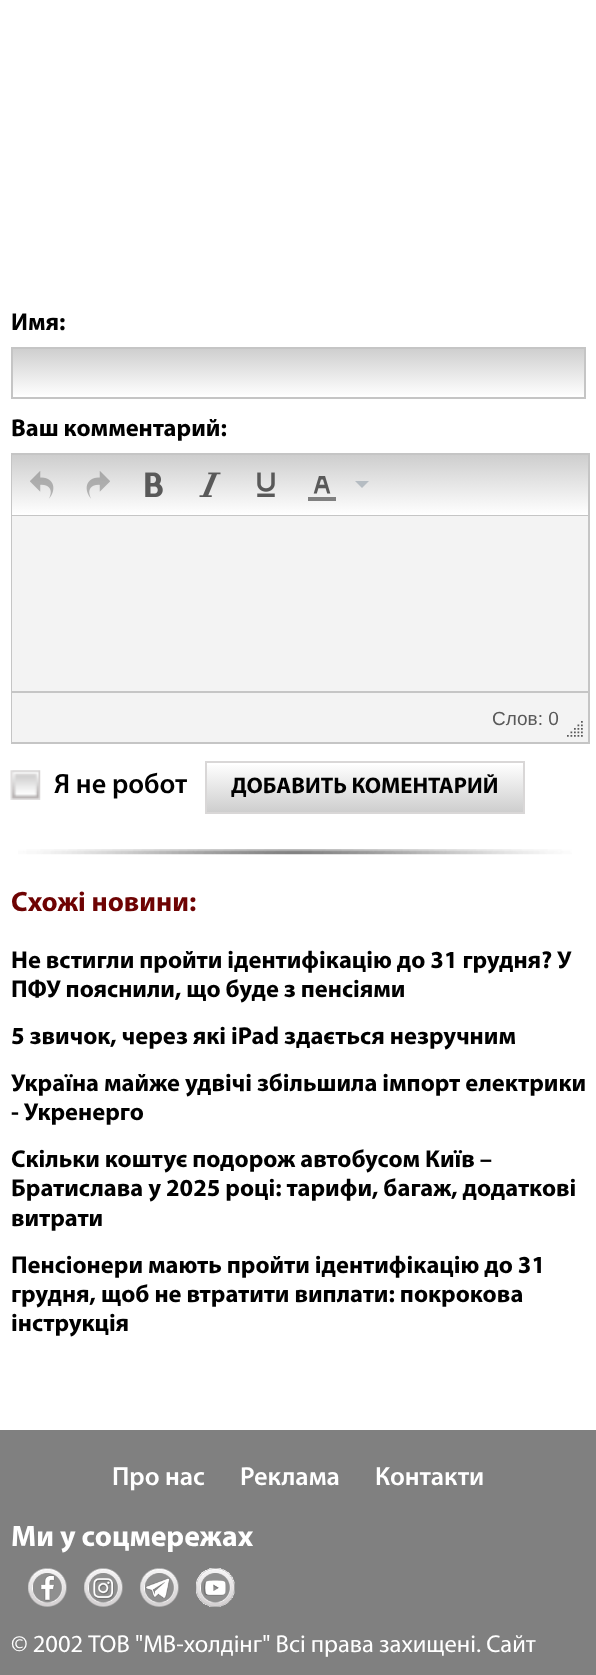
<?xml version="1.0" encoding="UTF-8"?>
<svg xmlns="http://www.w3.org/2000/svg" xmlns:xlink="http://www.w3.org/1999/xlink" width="596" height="1675">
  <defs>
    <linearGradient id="g1" gradientUnits="userSpaceOnUse" x1="298" y1="348" x2="298" y2="397"><stop offset="0" stop-color="#cecece" /><stop offset="1" stop-color="#ffffff" /></linearGradient>
    <linearGradient id="g2" gradientUnits="userSpaceOnUse" x1="300" y1="455" x2="300" y2="515"><stop offset="0" stop-color="#cecece" /><stop offset="1" stop-color="#ffffff" /></linearGradient>
    <linearGradient id="g3" gradientUnits="userSpaceOnUse" x1="365" y1="812" x2="365" y2="763"><stop offset="0" stop-color="#cecece" /><stop offset="1" stop-color="#ffffff" /></linearGradient>
  </defs>
  <rect width="100%" height="100%" fill="#ffffff" />
  <rect x="13" y="349" width="571" height="46" fill="url(#g1)" />
  <rect x="12" y="348" width="573" height="50" fill="none" stroke="#c5c5c5" stroke-width="2" />
  <rect x="12" y="454" width="577" height="289" fill="none" stroke="#c5c5c5" stroke-width="2" />
  <rect x="12" y="455" width="576" height="60" fill="url(#g2)" />
  <image x="30" y="471" width="24" height="28" xlink:href="image1.png" />
  <image x="86" y="471" width="24" height="28" xlink:href="image2.png" />
  <image x="145" y="472" width="18" height="25" xlink:href="image3.png" />
  <image x="199" y="472" width="22" height="25" xlink:href="image4.png" />
  <image x="257" y="472" width="18" height="25" xlink:href="image5.png" />
  <image x="313" y="476" width="18" height="18" xlink:href="image6.png" />
  <rect x="308" y="497" width="28" height="4" fill="#808080" />
  <path d="M 355 481 h 14 l -7 7 z" fill="#b5bcc2" />
  <rect x="12" y="515" width="576" height="1" fill="#c5c5c5" />
  <rect x="12" y="516" width="576" height="175" fill="#f3f3f3" />
  <rect x="12" y="693" width="576" height="49" fill="#f3f3f3" />
  <rect x="12" y="691" width="576" height="2" fill="#c5c5c5" />
  <image x="567" y="721" width="16" height="16" xlink:href="image7.png" />
  <image x="10" y="770" width="31" height="30" xlink:href="image8.png" />
  <rect x="207" y="765" width="316" height="47" fill="url(#g3)" />
  <rect x="206" y="762" width="318" height="51" fill="none" stroke="#d9d7d7" stroke-width="2" />
  <image x="18" y="849" width="554" height="6" xlink:href="image9.png" />
  <rect y="1430" width="596" height="245" fill="#808080" />
  <image x="28" y="1568" width="39" height="39" xlink:href="image10.png" />
  <image x="84" y="1568" width="39" height="39" xlink:href="image11.png" />
  <image x="140" y="1568" width="39" height="39" xlink:href="image12.png" />
  <image x="196" y="1568" width="39" height="39" xlink:href="image13.png" />
  <text x="11" y="330" style="font-family: Myriad; font-size: 24.5px; font-weight: bold; fill: #000000">Имя:</text>
  <text x="11" y="436" style="font-family: Myriad; font-size: 24.5px; font-weight: bold; fill: #000000">Ваш комментарий:</text>
  <text x="492" y="725" style="font-family: Liberation Sans; font-size: 19px; fill: #595959">Слов: 0</text>
  <text x="54" y="793" style="font-family: Myriad; font-size: 28px; font-weight: 600; fill: #000000">Я не робот</text>
  <text x="231" y="793" style="font-family: Myriad; font-size: 22.75px; font-weight: bold; fill: #000000">ДОБАВИТЬ КОМЕНТАРИЙ</text>
  <text x="11" y="911" style="font-family: Myriad; font-size: 28px; font-weight: bold; fill: #6e0303">Схожі новини:</text>
  <text x="11" y="968" style="font-family: Myriad; font-size: 24.5px; font-weight: bold; fill: #000000">Не встигли пройти ідентифікацію до 31 грудня? У</text>
  <text x="11" y="997" style="font-family: Myriad; font-size: 24.5px; font-weight: bold; fill: #000000">ПФУ пояснили, що буде з пенсіями</text>
  <text x="11" y="1044" style="font-family: Myriad; font-size: 24.5px; font-weight: bold; fill: #000000">5 звичок, через які iPad здається незручним</text>
  <text x="11" y="1091" style="font-family: Myriad; font-size: 24.5px; font-weight: bold; fill: #000000">Україна майже удвічі збільшила імпорт електрики</text>
  <text x="11" y="1120" style="font-family: Myriad; font-size: 24.5px; font-weight: bold; fill: #000000">- Укренерго</text>
  <text x="11" y="1167" style="font-family: Myriad; font-size: 24.5px; font-weight: bold; fill: #000000">Скільки коштує подорож автобусом Київ –</text>
  <text x="11" y="1196" style="font-family: Myriad; font-size: 24.5px; font-weight: bold; fill: #000000">Братислава у 2025 році: тарифи, багаж, додаткові</text>
  <text x="11" y="1226" style="font-family: Myriad; font-size: 24.5px; font-weight: bold; fill: #000000">витрати</text>
  <text x="11" y="1273" style="font-family: Myriad; font-size: 24.5px; font-weight: bold; fill: #000000">Пенсіонери мають пройти ідентифікацію до 31</text>
  <text x="11" y="1302" style="font-family: Myriad; font-size: 24.5px; font-weight: bold; fill: #000000">грудня, щоб не втратити виплати: покрокова</text>
  <text x="11" y="1331" style="font-family: Myriad; font-size: 24.5px; font-weight: bold; fill: #000000">інструкція</text>
  <text x="112" y="1485" style="font-family: Myriad; font-size: 26.25px; font-weight: 600; fill: #ffffff">Про нас</text>
  <text x="240" y="1485" style="font-family: Myriad; font-size: 26.25px; font-weight: 600; fill: #ffffff">Реклама</text>
  <text x="375" y="1485" style="font-family: Myriad; font-size: 26.25px; font-weight: 600; fill: #ffffff">Контакти</text>
  <text x="11" y="1546" style="font-family: Myriad; font-size: 29.75px; font-weight: bold; fill: #ffffff">Ми у соцмережах</text>
  <text x="11" y="1652" style="font-family: Myriad; font-size: 24.5px; fill: #ffffff">© 2002 ТОВ "МВ-холдінг" Всі права захищені. Сайт</text>
</svg>
